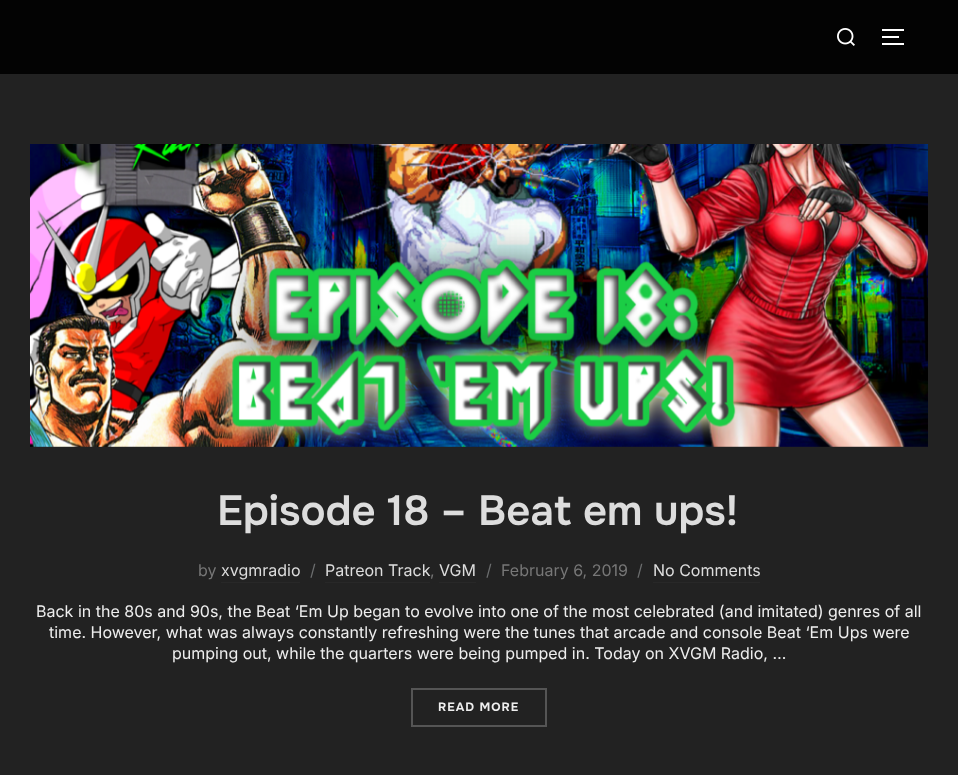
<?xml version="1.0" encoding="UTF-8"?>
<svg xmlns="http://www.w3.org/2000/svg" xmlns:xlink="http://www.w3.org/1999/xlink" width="958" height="775">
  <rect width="100%" height="100%" fill="#222222" />
  <rect width="958" height="74" fill="#000000" fill-opacity="0.9" />
  <image x="837" y="28" width="18" height="18" xlink:href="image1.png" />
  <rect x="882" y="29" width="22" height="2" fill="#ffffff" />
  <rect x="882" y="36" width="17" height="2" fill="#ffffff" />
  <rect x="882" y="43" width="22" height="2" fill="#ffffff" />
  <image x="30" y="144" width="898" height="303" xlink:href="image2.png" />
  <rect x="221" y="582" width="79" height="1" fill="#282828" />
  <rect x="325" y="582" width="105" height="1" fill="#282828" />
  <rect x="439" y="582" width="37" height="1" fill="#282828" />
  <rect x="653" y="582" width="107" height="1" fill="#282828" />
  <rect x="412" y="689" width="134" height="37" fill="none" stroke="#555555" stroke-width="2" />
  <text x="217" y="525" style="font-family: Onest; font-size: 42px; font-weight: 600; fill: #dddddd">Episode 18 – Beat em ups!</text>
  <text x="198" y="576" style="font-family: Inter; font-size: 16px; fill: #777777">by</text>
  <text x="221" y="576" style="font-family: Inter; font-size: 16px; fill: #dddddd">xvgmradio</text>
  <text x="310" y="576" style="font-family: Inter; font-size: 16px; fill: #6c6e6f">/</text>
  <text x="325" y="576" style="font-family: Inter; font-size: 16px; fill: #dddddd">Patreon Track</text>
  <text x="430" y="576" style="font-family: Inter; font-size: 16px; fill: #777777">,</text>
  <text x="439" y="576" style="font-family: Inter; font-size: 16px; fill: #dddddd">VGM</text>
  <text x="486" y="576" style="font-family: Inter; font-size: 16px; fill: #6c6e6f">/</text>
  <text x="501" y="576" style="font-family: Inter; font-size: 16px; fill: #777777">February 6, 2019</text>
  <text x="637" y="576" style="font-family: Inter; font-size: 16px; fill: #6c6e6f">/</text>
  <text x="653" y="576" style="font-family: Inter; font-size: 16px; fill: #dddddd">No Comments</text>
  <text x="36" y="617" style="font-family: Inter; font-size: 16px; fill: #eeeeee">Back in the 80s and 90s, the Beat ‘Em Up began to evolve into one of the most celebrated (and imitated) genres of all</text>
  <text x="49" y="638" style="font-family: Inter; font-size: 16px; fill: #eeeeee">time. However, what was always constantly refreshing were the tunes that arcade and console Beat ‘Em Ups were</text>
  <text x="172" y="659" style="font-family: Inter; font-size: 16px; fill: #eeeeee">pumping out, while the quarters were being pumped in. Today on XVGM Radio, …</text>
  <text x="438" y="711" style="font-family: Onest; font-size: 12px; font-weight: bold; letter-spacing: 1px; fill: #eeeeee">READ MORE</text>
</svg>
